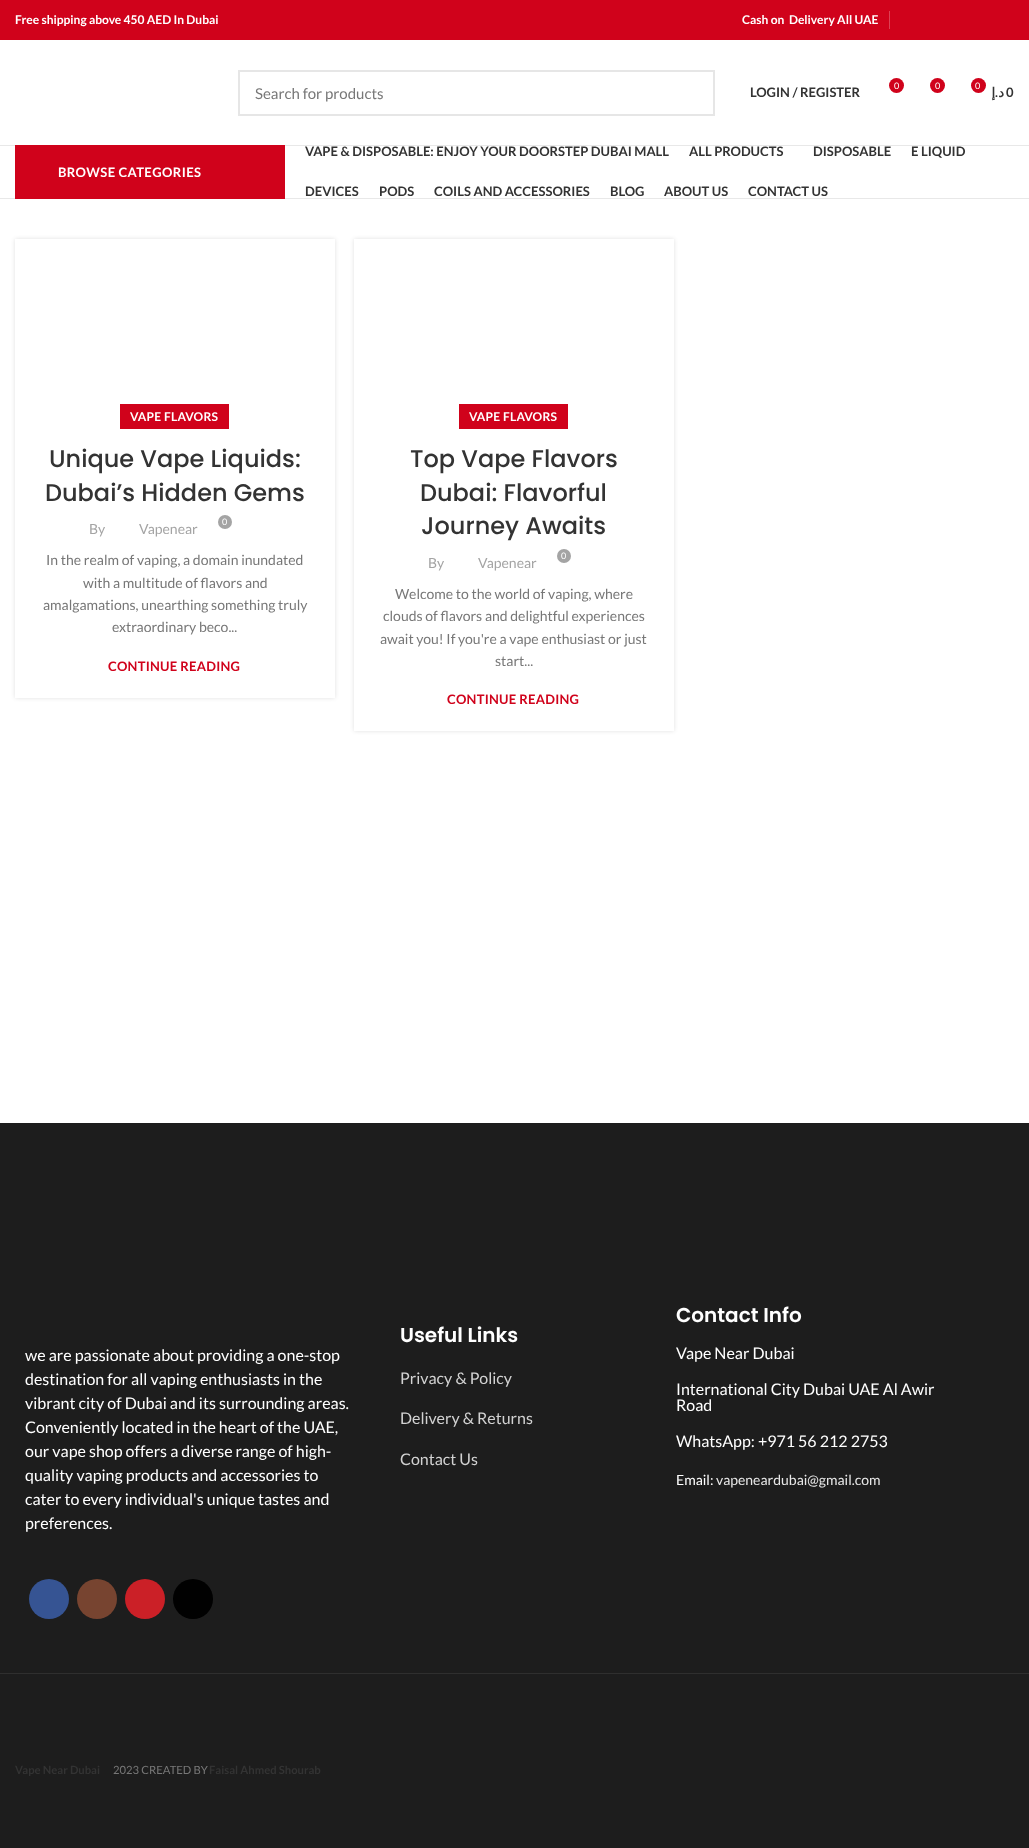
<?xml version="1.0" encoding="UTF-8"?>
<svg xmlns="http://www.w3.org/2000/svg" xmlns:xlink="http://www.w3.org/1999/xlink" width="1029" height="1848">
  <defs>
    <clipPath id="clip1"><path d="M 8 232 h 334 v 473 h -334 z m 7 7 h 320 v 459 h -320 z" clip-rule="evenodd" /></clipPath>
    <clipPath id="clip2"><path d="M 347 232 h 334 v 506 h -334 z m 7 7 h 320 v 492 h -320 z" clip-rule="evenodd" /></clipPath>
  </defs>
  <rect width="100%" height="100%" fill="#ffffff" />
  <rect width="1029" height="40" fill="#d0021b" />
  <rect x="889" y="11" width="1" height="18" fill="#dc4154" />
  <rect y="145" width="1029" height="1" fill="#e8e8e8" />
  <rect x="239" y="71" width="475" height="44" fill="none" stroke="#e6e6e6" stroke-width="2" />
  <circle cx="896.5" cy="85.5" r="7.5" fill="#d0021b" />
  <circle cx="937.5" cy="85.5" r="7.5" fill="#d0021b" />
  <circle cx="978.5" cy="85.5" r="7.5" fill="#d0021b" />
  <rect y="198" width="1029" height="1" fill="#e8e8e8" />
  <rect x="15" y="145" width="270" height="54" fill="#d0021b" />
  <g clip-path="url(#clip1)">
    <rect x="15" y="239" width="320" height="459" fill="#000000" fill-opacity="0.12" filter="blur(2px)" />
  </g>
  <rect x="120" y="404" width="109" height="25" fill="#d0021b" />
  <circle cx="225" cy="522" r="7" fill="#a4a4a4" />
  <g clip-path="url(#clip2)">
    <rect x="354" y="239" width="320" height="492" fill="#000000" fill-opacity="0.12" filter="blur(2px)" />
  </g>
  <rect x="459" y="404" width="109" height="25" fill="#d0021b" />
  <circle cx="564" cy="556" r="7" fill="#a4a4a4" />
  <rect y="1123" width="1029" height="725" fill="#1d1d1d" />
  <circle cx="49" cy="1599" r="20" fill="#365493" />
  <circle cx="97" cy="1599" r="20" fill="#774430" />
  <circle cx="145" cy="1599" r="20" fill="#cb2027" />
  <circle cx="193" cy="1599" r="20" fill="#010101" />
  <rect y="1673" width="1029" height="1" fill="#2f2f2f" />
  <text x="15" y="24" style="font-family: Lato; font-size: 12px; font-weight: bold; fill: #ffffff">Free shipping above 450 AED In Dubai</text>
  <text x="742" y="24" style="font-family: Lato; font-size: 12px; font-weight: bold; fill: #ffffff" xml:space="preserve">Cash on  Delivery All UAE</text>
  <text x="255" y="99" style="font-family: Lato; font-size: 15px; fill: #777777">Search for products</text>
  <text x="750" y="97" style="font-family: Lato; font-size: 13px; font-weight: bold; fill: #333333">LOGIN / REGISTER</text>
  <text x="894" y="89" style="font-family: Lato; font-size: 9px; fill: #ffffff">0</text>
  <text x="935" y="89" style="font-family: Lato; font-size: 9px; fill: #ffffff">0</text>
  <text x="975" y="89" style="font-family: Lato; font-size: 9px; fill: #ffffff">0</text>
  <text x="995" y="97" style="font-family: DejaVu Sans; font-size: 13px; font-weight: bold; direction: rtl; fill: #333333">إ</text>
  <text x="998" y="97" style="font-family: Lato; font-size: 13px; font-weight: bold; direction: rtl; fill: #333333">.</text>
  <text x="1004" y="97" style="font-family: DejaVu Sans; font-size: 13px; font-weight: bold; direction: rtl; fill: #333333">د</text>
  <text x="1006" y="97" style="font-family: Lato; font-size: 13px; font-weight: bold; fill: #333333">0</text>
  <text x="58" y="177" style="font-family: Lato; font-size: 13px; font-weight: bold; letter-spacing: 0.4px; fill: #ffffff">BROWSE CATEGORIES</text>
  <text x="305" y="156" style="font-family: Lato; font-size: 13px; font-weight: bold; fill: #333333">VAPE &amp; DISPOSABLE: ENJOY YOUR DOORSTEP DUBAI MALL</text>
  <text x="689" y="156" style="font-family: Lato; font-size: 13px; font-weight: bold; fill: #333333">ALL PRODUCTS</text>
  <text x="813" y="156" style="font-family: Lato; font-size: 13px; font-weight: bold; fill: #333333">DISPOSABLE</text>
  <text x="911" y="156" style="font-family: Lato; font-size: 13px; font-weight: bold; fill: #333333">E LIQUID</text>
  <text x="305" y="196" style="font-family: Lato; font-size: 13px; font-weight: bold; fill: #333333">DEVICES</text>
  <text x="379" y="196" style="font-family: Lato; font-size: 13px; font-weight: bold; fill: #333333">PODS</text>
  <text x="434" y="196" style="font-family: Lato; font-size: 13px; font-weight: bold; fill: #333333">COILS AND ACCESSORIES</text>
  <text x="610" y="196" style="font-family: Lato; font-size: 13px; font-weight: bold; fill: #333333">BLOG</text>
  <text x="664" y="196" style="font-family: Lato; font-size: 13px; font-weight: bold; fill: #333333">ABOUT US</text>
  <text x="748" y="196" style="font-family: Lato; font-size: 13px; font-weight: bold; fill: #333333">CONTACT US</text>
  <text x="130" y="421" style="font-family: Lato; font-size: 12px; font-weight: bold; letter-spacing: 0.25px; fill: #ffffff">VAPE FLAVORS</text>
  <text x="49" y="467" style="font-family: Poppins; font-size: 24px; font-weight: 500; fill: #333333">Unique Vape Liquids:</text>
  <text x="45" y="501" style="font-family: Poppins; font-size: 24px; font-weight: 500; fill: #333333">Dubai’s Hidden Gems</text>
  <text x="222" y="525" style="font-family: Lato; font-size: 9px; fill: #ffffff">0</text>
  <text x="89" y="534" style="font-family: Lato; font-size: 14px; fill: #a4a4a4">By</text>
  <text x="139" y="534" style="font-family: Lato; font-size: 14px; fill: #a4a4a4">Vapenear</text>
  <text x="46" y="565" style="font-family: Lato; font-size: 14px; fill: #777777">In the realm of vaping, a domain inundated</text>
  <text x="83" y="588" style="font-family: Lato; font-size: 14px; fill: #777777">with a multitude of flavors and</text>
  <text x="43" y="610" style="font-family: Lato; font-size: 14px; fill: #777777">amalgamations, unearthing something truly</text>
  <text x="112" y="632" style="font-family: Lato; font-size: 14px; fill: #777777">extraordinary beco...</text>
  <text x="108" y="671" style="font-family: Lato; font-size: 13px; font-weight: bold; letter-spacing: 0.25px; fill: #d0021b">CONTINUE READING</text>
  <text x="469" y="421" style="font-family: Lato; font-size: 12px; font-weight: bold; letter-spacing: 0.25px; fill: #ffffff">VAPE FLAVORS</text>
  <text x="410" y="467" style="font-family: Poppins; font-size: 24px; font-weight: 500; fill: #333333">Top Vape Flavors</text>
  <text x="420" y="501" style="font-family: Poppins; font-size: 24px; font-weight: 500; fill: #333333">Dubai: Flavorful</text>
  <text x="421" y="534" style="font-family: Poppins; font-size: 24px; font-weight: 500; fill: #333333">Journey Awaits</text>
  <text x="561" y="559" style="font-family: Lato; font-size: 9px; fill: #ffffff">0</text>
  <text x="428" y="568" style="font-family: Lato; font-size: 14px; fill: #a4a4a4">By</text>
  <text x="478" y="568" style="font-family: Lato; font-size: 14px; fill: #a4a4a4">Vapenear</text>
  <text x="395" y="599" style="font-family: Lato; font-size: 14px; fill: #777777">Welcome to the world of vaping, where</text>
  <text x="383" y="621" style="font-family: Lato; font-size: 14px; fill: #777777">clouds of flavors and delightful experiences</text>
  <text x="380" y="644" style="font-family: Lato; font-size: 14px; fill: #777777">await you! If you're a vape enthusiast or just</text>
  <text x="495" y="666" style="font-family: Lato; font-size: 14px; fill: #777777">start...</text>
  <text x="447" y="704" style="font-family: Lato; font-size: 13px; font-weight: bold; letter-spacing: 0.25px; fill: #d0021b">CONTINUE READING</text>
  <text x="25" y="1361" style="font-family: Lato; font-size: 16px; fill: #ffffff">we are passionate about providing a one-stop</text>
  <text x="25" y="1385" style="font-family: Lato; font-size: 16px; fill: #ffffff">destination for all vaping enthusiasts in the</text>
  <text x="25" y="1409" style="font-family: Lato; font-size: 16px; fill: #ffffff">vibrant city of Dubai and its surrounding areas.</text>
  <text x="25" y="1433" style="font-family: Lato; font-size: 16px; fill: #ffffff">Conveniently located in the heart of the UAE,</text>
  <text x="25" y="1457" style="font-family: Lato; font-size: 16px; fill: #ffffff">our vape shop offers a diverse range of high-</text>
  <text x="25" y="1481" style="font-family: Lato; font-size: 16px; fill: #ffffff">quality vaping products and accessories to</text>
  <text x="25" y="1505" style="font-family: Lato; font-size: 16px; fill: #ffffff">cater to every individual's unique tastes and</text>
  <text x="25" y="1529" style="font-family: Lato; font-size: 16px; fill: #ffffff">preferences.</text>
  <text x="400" y="1342" style="font-family: Poppins; font-size: 20px; font-weight: 600; fill: #ffffff">Useful Links</text>
  <text x="400" y="1384" style="font-family: Lato; font-size: 16px; fill: #d2d2d2">Privacy &amp; Policy</text>
  <text x="400" y="1424" style="font-family: Lato; font-size: 16px; fill: #d2d2d2">Delivery &amp; Returns</text>
  <text x="400" y="1465" style="font-family: Lato; font-size: 16px; fill: #d2d2d2">Contact Us</text>
  <text x="676" y="1322" style="font-family: Poppins; font-size: 20px; font-weight: 600; fill: #ffffff">Contact Info</text>
  <text x="676" y="1359" style="font-family: Lato; font-size: 16px; fill: #ffffff">Vape Near Dubai</text>
  <text x="676" y="1395" style="font-family: Lato; font-size: 16px; fill: #ffffff">International City Dubai UAE Al Awir</text>
  <text x="676" y="1411" style="font-family: Lato; font-size: 16px; fill: #ffffff">Road</text>
  <text x="676" y="1447" style="font-family: Lato; font-size: 16px; fill: #ffffff">WhatsApp: +971 56 212 2753</text>
  <text x="676" y="1485" style="font-family: Lato; font-size: 14px; fill: #ffffff">Email:</text>
  <text x="716" y="1485" style="font-family: Lato; font-size: 14px; fill: #e8e8e8">vapeneardubai@gmail.com</text>
  <text x="15" y="1774" style="font-family: Lato; font-size: 11.25px; font-weight: bold; fill: #333333">Vape Near Dubai</text>
  <text x="113" y="1774" style="font-family: Lato; font-size: 11.25px; fill: #777777">2023 CREATED BY</text>
  <text x="209" y="1774" style="font-family: Lato; font-size: 11.25px; font-weight: bold; fill: #333333">Faisal Ahmed Shourab</text>
</svg>
